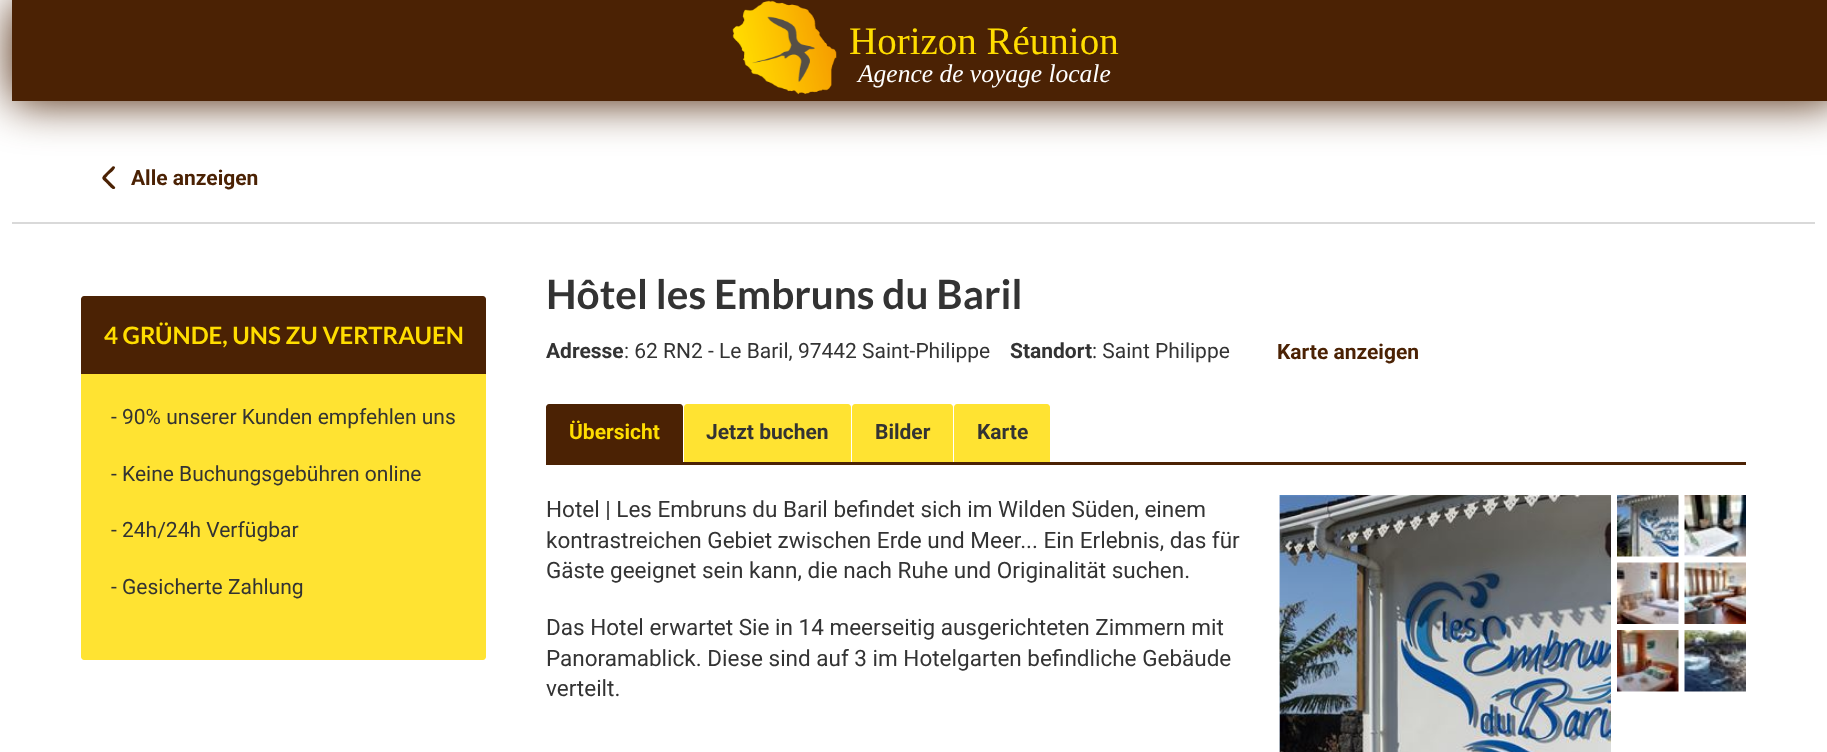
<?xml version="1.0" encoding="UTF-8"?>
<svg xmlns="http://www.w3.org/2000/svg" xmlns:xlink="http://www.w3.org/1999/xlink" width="1827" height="752">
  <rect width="100%" height="100%" fill="#ffffff" />
  <path d="M 103 176 l 9.5 -9.5 c 1 -0.5 2 0 2.5 0.5 c 0.5 2 -5.5 7 -7 8 c -0.5 1 -3 4.5 -5 3.5 l -0.5 -1 z" fill="#4b2204" />
  <rect x="12" y="2" width="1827" height="100" fill="#4b2204" filter="blur(22.5px)" />
  <rect x="12" width="1815" height="101" fill="#4b2204" />
  <image x="732" y="0" width="105" height="95" xlink:href="image1.png" />
  <rect x="12" y="222" width="1803" height="2" fill="#d9d9d9" />
  <path d="M 105 177 l 10 10 c 0.5 0.5 0 2 -1 2 c -1.5 1 -6.5 -5 -8 -6.5 c -1 -1 -4.5 -3.5 -3.5 -5 l 1.5 -1 z" fill="#4b2204" />
  <path d="M 84 296 h 399 c 1.5 0 3 1.5 3 3 v 75 h -405 v -75 c 0 -1.5 1.5 -3 3 -3 z" fill="#4b2204" />
  <path d="M 81 374 h 405 v 283 c 0 1.5 -1.5 3 -3 3 h -399 c -1.5 0 -3 -1.5 -3 -3 z" fill="#ffe332" />
  <rect x="683" y="462" width="1063" height="3" fill="#4b2204" />
  <path d="M 549 404 h 131 c 1.5 0 3 1.5 3 3 v 58 h -137 v -58 c 0 -1.5 1.5 -3 3 -3 z" fill="#4b2204" />
  <path d="M 687 404 h 161 c 1.5 0 3 1.5 3 3 v 58 h -167 v -58 c 0 -1.5 1.5 -3 3 -3 z" fill="#ffe332" />
  <rect x="684" y="462" width="167" height="3" fill="#4b2204" />
  <path d="M 855 404 h 95 c 1.5 0 3 1.5 3 3 v 58 h -101 v -58 c 0 -1.5 1.5 -3 3 -3 z" fill="#ffe332" />
  <rect x="852" y="462" width="101" height="3" fill="#4b2204" />
  <path d="M 957 404 h 90 c 1.5 0 3 1.5 3 3 v 58 h -96 v -58 c 0 -1.5 1.5 -3 3 -3 z" fill="#ffe332" />
  <rect x="954" y="462" width="96" height="3" fill="#4b2204" />
  <image x="1279" y="495" width="1" height="257" xlink:href="image2.png" />
  <image x="1279" y="495" width="332" height="257" xlink:href="image3.png" />
  <image x="1617" y="495" width="62" height="62" xlink:href="image4.png" />
  <image x="1684" y="495" width="62" height="62" xlink:href="image5.png" />
  <image x="1617" y="562" width="62" height="62" xlink:href="image6.png" />
  <image x="1684" y="562" width="62" height="62" xlink:href="image7.png" />
  <image x="1617" y="630" width="62" height="62" xlink:href="image8.png" />
  <image x="1684" y="630" width="62" height="62" xlink:href="image9.png" />
  <text x="849" y="54" style="font-family: Liberation Serif; font-size: 39px; fill: #ffdd00">Horizon Réunion</text>
  <text x="858" y="82" style="font-family: Liberation Serif; font-size: 25.5px; font-style: italic; fill: #ffffff">Agence de voyage locale</text>
  <text x="131" y="185" style="font-family: Roboto; font-size: 21px; font-weight: bold; fill: #4b2204">Alle anzeigen</text>
  <text x="104" y="344" style="font-family: Lato; font-size: 24px; font-weight: bold; fill: #ffdd00">4 GRÜNDE, UNS ZU VERTRAUEN</text>
  <text x="111" y="424" style="font-family: Roboto; font-size: 21px; fill: #333333">- 90% unserer Kunden empfehlen uns</text>
  <text x="111" y="481" style="font-family: Roboto; font-size: 21px; fill: #333333">- Keine Buchungsgebühren online</text>
  <text x="111" y="537" style="font-family: Roboto; font-size: 21px; fill: #333333">- 24h/24h Verfügbar</text>
  <text x="111" y="594" style="font-family: Roboto; font-size: 21px; fill: #333333">- Gesicherte Zahlung</text>
  <text x="546" y="309" style="font-family: Lato; font-size: 40.5px; font-weight: bold; fill: #333333">Hôtel les Embruns du Baril</text>
  <text x="546" y="358" style="font-family: Roboto; font-size: 21px; font-weight: bold; fill: #333333">Adresse</text>
  <text x="624" y="358" style="font-family: Roboto; font-size: 21px; fill: #333333">: 62 RN2 - Le Baril, 97442 Saint-Philippe</text>
  <text x="1010" y="358" style="font-family: Roboto; font-size: 21px; font-weight: bold; fill: #333333">Standort</text>
  <text x="1092" y="358" style="font-family: Roboto; font-size: 21px; fill: #333333">: Saint Philippe</text>
  <text x="1277" y="359" style="font-family: Roboto; font-size: 21px; font-weight: bold; fill: #4b2204">Karte anzeigen</text>
  <text x="569" y="439" style="font-family: Roboto; font-size: 21px; font-weight: bold; fill: #ffdd00">Übersicht</text>
  <text x="706" y="439" style="font-family: Roboto; font-size: 21px; font-weight: bold; fill: #333333">Jetzt buchen</text>
  <text x="875" y="439" style="font-family: Roboto; font-size: 21px; font-weight: bold; fill: #333333">Bilder</text>
  <text x="977" y="439" style="font-family: Roboto; font-size: 21px; font-weight: bold; fill: #333333">Karte</text>
  <text x="546" y="517" style="font-family: Roboto; font-size: 22.5px; fill: #333333">Hotel | Les Embruns du Baril befindet sich im Wilden Süden, einem</text>
  <text x="546" y="548" style="font-family: Roboto; font-size: 22.5px; fill: #333333">kontrastreichen Gebiet zwischen Erde und Meer... Ein Erlebnis, das für</text>
  <text x="546" y="578" style="font-family: Roboto; font-size: 22.5px; fill: #333333">Gäste geeignet sein kann, die nach Ruhe und Originalität suchen.</text>
  <text x="546" y="635" style="font-family: Roboto; font-size: 22.5px; fill: #333333">Das Hotel erwartet Sie in 14 meerseitig ausgerichteten Zimmern mit</text>
  <text x="546" y="666" style="font-family: Roboto; font-size: 22.5px; fill: #333333">Panoramablick. Diese sind auf 3 im Hotelgarten befindliche Gebäude</text>
  <text x="546" y="696" style="font-family: Roboto; font-size: 22.5px; fill: #333333">verteilt.</text>
</svg>
